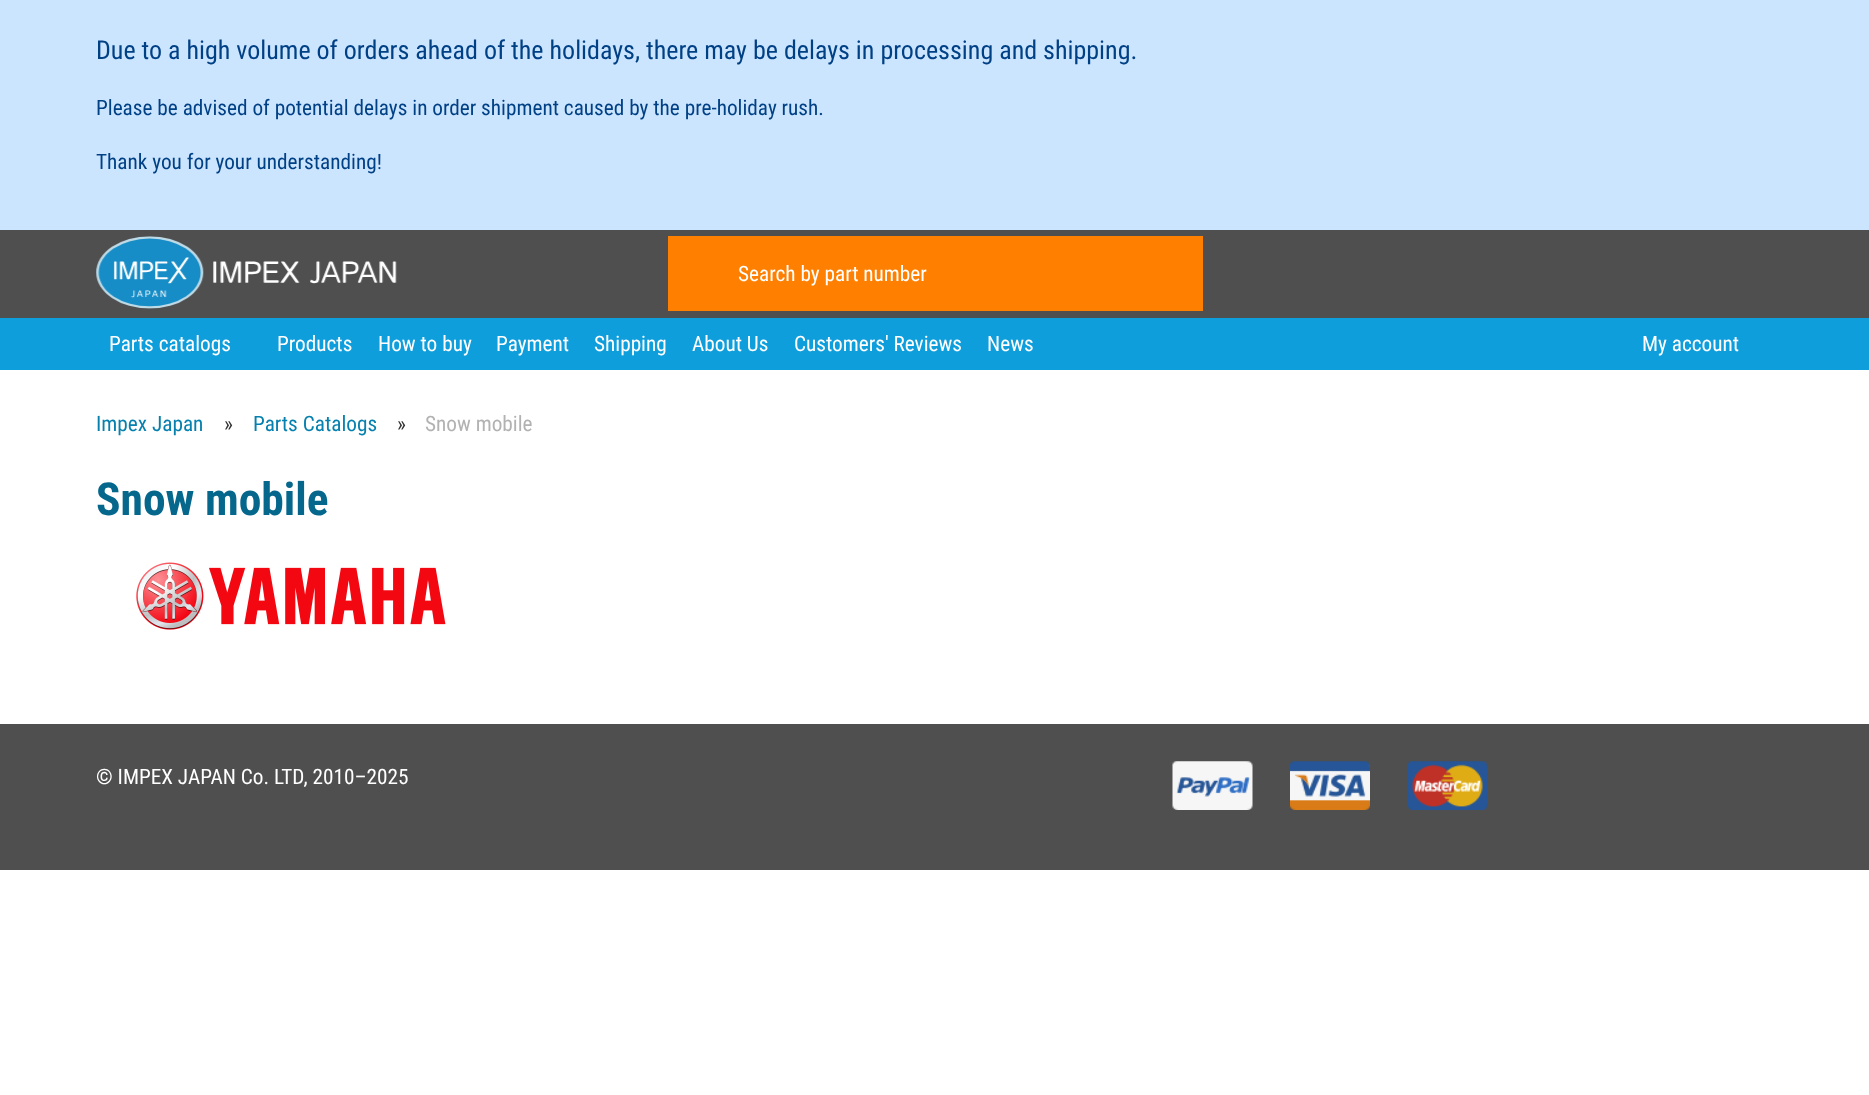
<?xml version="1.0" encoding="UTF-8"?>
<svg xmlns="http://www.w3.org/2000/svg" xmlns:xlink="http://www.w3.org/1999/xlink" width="1869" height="1095">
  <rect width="100%" height="100%" fill="#ffffff" />
  <rect y="230" width="1869" height="88" fill="#4f4f4f" />
  <rect width="1869" height="230" fill="#cce5ff" />
  <image x="96" y="236" width="301" height="73" xlink:href="image1.png" />
  <rect x="668" y="236" width="535" height="75" fill="#ff7f00" />
  <rect y="318" width="1869" height="52" fill="#0f9edc" />
  <image x="136" y="562" width="310" height="68" xlink:href="image2.png" />
  <rect y="724" width="1869" height="146" fill="#4f4f4f" />
  <image x="1172" y="761" width="81" height="49" xlink:href="image3.png" />
  <image x="1290" y="761" width="80" height="49" xlink:href="image4.png" />
  <image x="1407" y="761" width="81" height="49" xlink:href="image5.png" />
  <text x="96" y="59" style="font-family: Roboto Condensed; font-size: 26px; fill: #004085">Due to a high volume of orders ahead of the holidays, there may be delays in processing and shipping.</text>
  <text x="96" y="115" style="font-family: Roboto Condensed; font-size: 21.25px; fill: #004085">Please be advised of potential delays in order shipment caused by the pre-holiday rush.</text>
  <text x="96" y="169" style="font-family: Roboto Condensed; font-size: 21.25px; fill: #004085">Thank you for your understanding!</text>
  <text x="738" y="281" style="font-family: Roboto Condensed; font-size: 21.25px; fill: #ffffff">Search by part number</text>
  <text x="109" y="351" style="font-family: Roboto Condensed; font-size: 21.25px; fill: #ffffff">Parts catalogs</text>
  <text x="277" y="351" style="font-family: Roboto Condensed; font-size: 21.25px; fill: #ffffff">Products</text>
  <text x="378" y="351" style="font-family: Roboto Condensed; font-size: 21.25px; fill: #ffffff">How to buy</text>
  <text x="496" y="351" style="font-family: Roboto Condensed; font-size: 21.25px; fill: #ffffff">Payment</text>
  <text x="594" y="351" style="font-family: Roboto Condensed; font-size: 21.25px; fill: #ffffff">Shipping</text>
  <text x="692" y="351" style="font-family: Roboto Condensed; font-size: 21.25px; fill: #ffffff">About Us</text>
  <text x="794" y="351" style="font-family: Roboto Condensed; font-size: 21.25px; fill: #ffffff">Customers' Reviews</text>
  <text x="987" y="351" style="font-family: Roboto Condensed; font-size: 21.25px; fill: #ffffff">News</text>
  <text x="1642" y="351" style="font-family: Roboto Condensed; font-size: 21.25px; fill: #ffffff">My account</text>
  <text x="96" y="431" style="font-family: Roboto Condensed; font-size: 21.25px; fill: #0680ae">Impex Japan</text>
  <text x="224" y="431" style="font-family: Roboto Condensed; font-size: 21.25px; fill: #333333">»</text>
  <text x="253" y="431" style="font-family: Roboto Condensed; font-size: 21.25px; fill: #0680ae">Parts Catalogs</text>
  <text x="397" y="431" style="font-family: Roboto Condensed; font-size: 21.25px; fill: #333333">»</text>
  <text x="425" y="431" style="font-family: Roboto Condensed; font-size: 21.25px; fill: #b2b2b2">Snow mobile</text>
  <text x="96" y="515" style="font-family: Roboto Condensed; font-size: 45.5px; font-weight: bold; fill: #05678c">Snow mobile</text>
  <text x="96" y="784" style="font-family: Roboto Condensed; font-size: 21.25px; fill: #ffffff">© IMPEX JAPAN Co. LTD, 2010–2025</text>
</svg>
